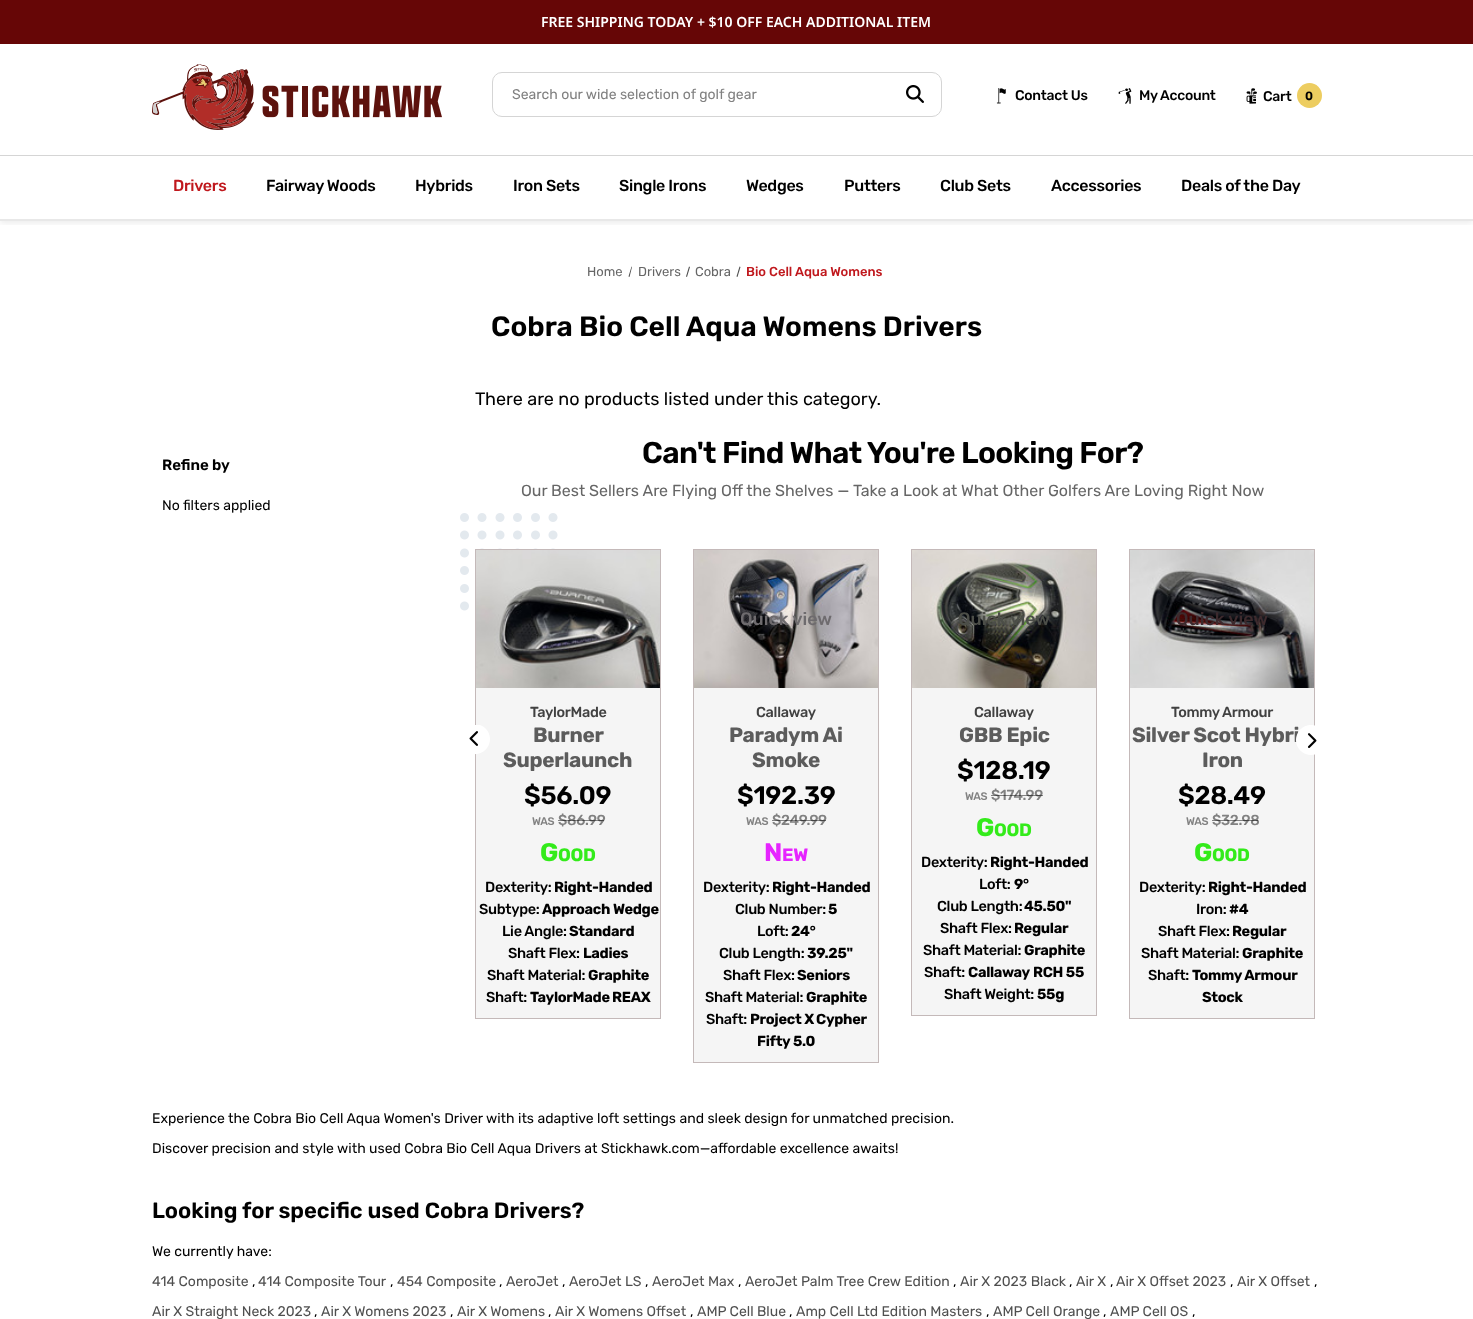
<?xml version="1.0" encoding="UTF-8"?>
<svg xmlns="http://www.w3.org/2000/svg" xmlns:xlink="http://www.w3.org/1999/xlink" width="1473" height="1319">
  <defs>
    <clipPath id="clip1"><rect x="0" y="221" width="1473" height="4" /></clipPath>
  </defs>
  <rect width="100%" height="100%" fill="#ffffff" />
  <g clip-path="url(#clip1)">
    <rect y="2" width="1473" height="221" fill="#000000" fill-opacity="0.08" filter="blur(3px)" />
  </g>
  <rect y="219" width="1473" height="2" fill="#e8e8e8" />
  <rect width="1473" height="44" fill="#660606" />
  <rect y="155" width="1473" height="1" fill="#d5d5d5" />
  <image x="152" y="64" width="290" height="66" xlink:href="image1.png" />
  <rect x="492.5" y="72.5" width="449" height="44" rx="9.5" fill="none" stroke="#d5d5d5" />
  <image x="906" y="85" width="18" height="18" xlink:href="image2.png" />
  <image x="996" y="88" width="10" height="16" xlink:href="image3.png" />
  <image x="1118" y="88" width="14" height="16" xlink:href="image4.png" />
  <image x="1246" y="88" width="11" height="16" xlink:href="image5.png" />
  <circle cx="1309.5" cy="95.5" r="12.5" fill="#edcd60" />
  <path d="M 739.5 266.5 l 1 0.5 l -3 10 l -1 -0.5 z" fill="#4f4f4f" />
  <image x="460" y="513" width="98" height="98" xlink:href="image6.png" />
  <rect x="476" y="688" width="184" height="330" fill="#f5f5f5" />
  <rect x="475.5" y="549.5" width="185" height="469" fill="none" stroke="#c4b9b9" />
  <image x="476" y="550" width="184" height="138" xlink:href="image7.png" />
  <rect x="694" y="688" width="184" height="374" fill="#f5f5f5" />
  <rect x="693.5" y="549.5" width="185" height="513" fill="none" stroke="#c4b9b9" />
  <image x="694" y="550" width="184" height="138" xlink:href="image8.png" />
  <rect x="912" y="688" width="184" height="327" fill="#f5f5f5" />
  <rect x="911.5" y="549.5" width="185" height="466" fill="none" stroke="#c4b9b9" />
  <image x="912" y="550" width="184" height="138" xlink:href="image9.png" />
  <rect x="1130" y="688" width="184" height="330" fill="#f5f5f5" />
  <rect x="1129.5" y="549.5" width="185" height="469" fill="none" stroke="#c4b9b9" />
  <image x="1130" y="550" width="184" height="138" xlink:href="image10.png" />
  <image x="469" y="725" width="21" height="30" xlink:href="image11.png" />
  <text x="541" y="27" style="font-family: Noto Sans; font-size: 14px; font-weight: 600; fill: #ffffff">FREE SHIPPING TODAY + $10 OFF EACH ADDITIONAL ITEM</text>
  <text x="512" y="99" style="font-family: Rubik; font-size: 14px; fill: #818181">Search our wide selection of golf gear</text>
  <text x="1015" y="100" style="font-family: Rubik; font-size: 14px; font-weight: 500; letter-spacing: -0.25px; fill: #000000">Contact Us</text>
  <text x="1139" y="100" style="font-family: Rubik; font-size: 14px; font-weight: 500; letter-spacing: -0.25px; fill: #000000">My Account</text>
  <text x="1263" y="101" style="font-family: Rubik; font-size: 14px; font-weight: 500; letter-spacing: -0.25px; fill: #000000">Cart</text>
  <text x="1305" y="100" style="font-family: Rubik; font-size: 12px; font-weight: 600; letter-spacing: -0.25px; fill: #000000">0</text>
  <text x="173" y="191" style="font-family: Rubik; font-size: 16px; font-weight: 500; letter-spacing: -0.3px; fill: #c0181d">Drivers</text>
  <text x="266" y="191" style="font-family: Rubik; font-size: 16px; font-weight: 500; letter-spacing: -0.3px; fill: #000000">Fairway Woods</text>
  <text x="415" y="191" style="font-family: Rubik; font-size: 16px; font-weight: 500; letter-spacing: -0.3px; fill: #000000">Hybrids</text>
  <text x="513" y="191" style="font-family: Rubik; font-size: 16px; font-weight: 500; letter-spacing: -0.3px; fill: #000000">Iron Sets</text>
  <text x="619" y="191" style="font-family: Rubik; font-size: 16px; font-weight: 500; letter-spacing: -0.3px; fill: #000000">Single Irons</text>
  <text x="746" y="191" style="font-family: Rubik; font-size: 16px; font-weight: 500; letter-spacing: -0.3px; fill: #000000">Wedges</text>
  <text x="844" y="191" style="font-family: Rubik; font-size: 16px; font-weight: 500; letter-spacing: -0.3px; fill: #000000">Putters</text>
  <text x="940" y="191" style="font-family: Rubik; font-size: 16px; font-weight: 500; letter-spacing: -0.3px; fill: #000000">Club Sets</text>
  <text x="1051" y="191" style="font-family: Rubik; font-size: 16px; font-weight: 500; letter-spacing: -0.3px; fill: #000000">Accessories</text>
  <text x="1181" y="191" style="font-family: Rubik; font-size: 16px; font-weight: 500; letter-spacing: -0.3px; fill: #000000">Deals of the Day</text>
  <text x="587" y="276" style="font-family: Rubik; font-size: 13px; fill: #666666">Home</text>
  <text x="638" y="276" style="font-family: Rubik; font-size: 13px; fill: #666666">Drivers</text>
  <path d="M 631.5 266.5 l 0.5 0.5 l -2.5 10 l -1 -0.5 z m 57.5 0 l 1 0.5 l -3 10 l -1 -0.5 z" fill="#4f4f4f" />
  <text x="695" y="276" style="font-family: Rubik; font-size: 13px; fill: #666666">Cobra</text>
  <text x="746" y="276" style="font-family: Rubik; font-size: 13px; font-weight: 500; fill: #c0181d">Bio Cell Aqua Womens</text>
  <text x="491" y="336" style="font-family: Rubik; font-size: 28px; font-weight: 600; fill: #000000">Cobra Bio Cell Aqua Womens Drivers</text>
  <text x="162" y="470" style="font-family: Rubik; font-size: 15px; font-weight: 600; fill: #000000">Refine by</text>
  <text x="162" y="510" style="font-family: Rubik; font-size: 14px; fill: #000000">No filters applied</text>
  <text x="475" y="405" style="font-family: Rubik; font-size: 18px; fill: #000000">There are no products listed under this category.</text>
  <text x="642" y="463" style="font-family: Rubik; font-size: 30px; font-weight: 600; letter-spacing: -0.6px; fill: #000000">Can't Find What You're Looking For?</text>
  <text x="521" y="496" style="font-family: Rubik; font-size: 16px; fill: #666666">Our Best Sellers Are Flying Off the Shelves — Take a Look at What Other Golfers Are Loving Right Now</text>
  <text x="530" y="717" style="font-family: Rubik; font-size: 14.5px; font-weight: 500; letter-spacing: -0.3px; fill: #414141">TaylorMade</text>
  <text x="533" y="742" style="font-family: Rubik; font-size: 20.75px; font-weight: bold; letter-spacing: -0.3px; fill: #5c5c5c">Burner</text>
  <text x="503" y="767" style="font-family: Rubik; font-size: 20.75px; font-weight: bold; letter-spacing: -0.3px; fill: #5c5c5c">Superlaunch</text>
  <text x="524" y="804" style="font-family: Rubik; font-size: 25.5px; font-weight: 600; letter-spacing: -0.3px; fill: #000000">$56.09</text>
  <text x="532" y="825" style="font-family: Rubik; font-size: 11px; font-weight: 500; letter-spacing: -0.3px; fill: #818181">WAS</text>
  <text x="558" y="825" style="font-family: Rubik; font-size: 14.5px; font-weight: 500; letter-spacing: -0.3px; fill: #818181">$86.99</text>
  <rect x="558" y="820" width="46" height="1" fill="#000000" fill-opacity="0.47" />
  <text x="540" y="861" style="font-family: Rubik; font-size: 25.5px; font-weight: bold; letter-spacing: -0.3px; fill: #33eb1a">G</text>
  <text x="558" y="861" style="font-family: Rubik; font-size: 18px; font-weight: bold; letter-spacing: -0.3px; fill: #33eb1a">OOD</text>
  <text x="485" y="892" style="font-family: Rubik; font-size: 14.5px; font-weight: 500; letter-spacing: -0.3px; fill: #000000">Dexterity:</text>
  <text x="554" y="892" style="font-family: Rubik; font-size: 14.5px; font-weight: bold; letter-spacing: -0.3px; fill: #000000">Right-Handed</text>
  <text x="479" y="914" style="font-family: Rubik; font-size: 14.5px; font-weight: 500; letter-spacing: -0.3px; fill: #000000">Subtype:</text>
  <text x="542" y="914" style="font-family: Rubik; font-size: 14.5px; font-weight: bold; letter-spacing: -0.3px; fill: #000000">Approach Wedge</text>
  <text x="502" y="936" style="font-family: Rubik; font-size: 14.5px; font-weight: 500; letter-spacing: -0.3px; fill: #000000">Lie Angle:</text>
  <text x="569" y="936" style="font-family: Rubik; font-size: 14.5px; font-weight: bold; letter-spacing: -0.3px; fill: #000000">Standard</text>
  <text x="508" y="958" style="font-family: Rubik; font-size: 14.5px; font-weight: 500; letter-spacing: -0.3px; fill: #000000">Shaft Flex:</text>
  <text x="583" y="958" style="font-family: Rubik; font-size: 14.5px; font-weight: bold; letter-spacing: -0.3px; fill: #000000">Ladies</text>
  <text x="487" y="980" style="font-family: Rubik; font-size: 14.5px; font-weight: 500; letter-spacing: -0.3px; fill: #000000">Shaft Material:</text>
  <text x="588" y="980" style="font-family: Rubik; font-size: 14.5px; font-weight: bold; letter-spacing: -0.3px; fill: #000000">Graphite</text>
  <text x="486" y="1002" style="font-family: Rubik; font-size: 14.5px; font-weight: 500; letter-spacing: -0.3px; fill: #000000">Shaft:</text>
  <text x="530" y="1002" style="font-family: Rubik; font-size: 14.5px; font-weight: bold; letter-spacing: -0.3px; fill: #000000">TaylorMade</text>
  <text x="612" y="1002" style="font-family: Rubik; font-size: 14.5px; font-weight: bold; letter-spacing: -0.3px; fill: #000000">REAX</text>
  <text x="740" y="625" style="font-family: Rubik; font-size: 18px; font-weight: 500; fill: #6e6b6e">Quick view</text>
  <text x="756" y="717" style="font-family: Rubik; font-size: 14.5px; font-weight: 500; letter-spacing: -0.3px; fill: #414141">Callaway</text>
  <text x="729" y="742" style="font-family: Rubik; font-size: 20.75px; font-weight: bold; letter-spacing: -0.3px; fill: #5c5c5c">Paradym Ai</text>
  <text x="752" y="767" style="font-family: Rubik; font-size: 20.75px; font-weight: bold; letter-spacing: -0.3px; fill: #5c5c5c">Smoke</text>
  <text x="737" y="804" style="font-family: Rubik; font-size: 25.5px; font-weight: 600; letter-spacing: -0.3px; fill: #000000">$192.39</text>
  <text x="746" y="825" style="font-family: Rubik; font-size: 11px; font-weight: 500; letter-spacing: -0.3px; fill: #818181">WAS</text>
  <text x="772" y="825" style="font-family: Rubik; font-size: 14.5px; font-weight: 500; letter-spacing: -0.3px; fill: #818181">$249.99</text>
  <rect x="772" y="820" width="54" height="1" fill="#000000" fill-opacity="0.47" />
  <text x="764" y="861" style="font-family: Rubik; font-size: 25.5px; font-weight: bold; letter-spacing: -0.3px; fill: #e624ff">N</text>
  <text x="782" y="861" style="font-family: Rubik; font-size: 18px; font-weight: bold; letter-spacing: -0.3px; fill: #e624ff">EW</text>
  <text x="703" y="892" style="font-family: Rubik; font-size: 14.5px; font-weight: 500; letter-spacing: -0.3px; fill: #000000">Dexterity:</text>
  <text x="772" y="892" style="font-family: Rubik; font-size: 14.5px; font-weight: bold; letter-spacing: -0.3px; fill: #000000">Right-Handed</text>
  <text x="735" y="914" style="font-family: Rubik; font-size: 14.5px; font-weight: 500; letter-spacing: -0.3px; fill: #000000">Club Number:</text>
  <text x="828" y="914" style="font-family: Rubik; font-size: 14.5px; font-weight: bold; letter-spacing: -0.3px; fill: #000000">5</text>
  <text x="757" y="936" style="font-family: Rubik; font-size: 14.5px; font-weight: 500; letter-spacing: -0.3px; fill: #000000">Loft:</text>
  <text x="791" y="936" style="font-family: Rubik; font-size: 14.5px; font-weight: bold; letter-spacing: -0.3px; fill: #000000">24°</text>
  <text x="719" y="958" style="font-family: Rubik; font-size: 14.5px; font-weight: 500; letter-spacing: -0.3px; fill: #000000">Club Length:</text>
  <text x="807" y="958" style="font-family: Rubik; font-size: 14.5px; font-weight: bold; letter-spacing: -0.3px; fill: #000000">39.25"</text>
  <text x="723" y="980" style="font-family: Rubik; font-size: 14.5px; font-weight: 500; letter-spacing: -0.3px; fill: #000000">Shaft Flex:</text>
  <text x="797" y="980" style="font-family: Rubik; font-size: 14.5px; font-weight: bold; letter-spacing: -0.3px; fill: #000000">Seniors</text>
  <text x="705" y="1002" style="font-family: Rubik; font-size: 14.5px; font-weight: 500; letter-spacing: -0.3px; fill: #000000">Shaft Material:</text>
  <text x="806" y="1002" style="font-family: Rubik; font-size: 14.5px; font-weight: bold; letter-spacing: -0.3px; fill: #000000">Graphite</text>
  <text x="706" y="1024" style="font-family: Rubik; font-size: 14.5px; font-weight: 500; letter-spacing: -0.3px; fill: #000000">Shaft:</text>
  <text x="750" y="1024" style="font-family: Rubik; font-size: 14.5px; font-weight: bold; letter-spacing: -0.3px; fill: #000000">Project X</text>
  <text x="816" y="1024" style="font-family: Rubik; font-size: 14.5px; font-weight: bold; letter-spacing: -0.3px; fill: #000000">Cypher</text>
  <text x="757" y="1046" style="font-family: Rubik; font-size: 14.5px; font-weight: bold; letter-spacing: -0.3px; fill: #000000">Fifty 5.0</text>
  <text x="958" y="625" style="font-family: Rubik; font-size: 18px; font-weight: 500; fill: #4c4e48">Quick view</text>
  <text x="974" y="717" style="font-family: Rubik; font-size: 14.5px; font-weight: 500; letter-spacing: -0.3px; fill: #414141">Callaway</text>
  <text x="959" y="742" style="font-family: Rubik; font-size: 20.75px; font-weight: bold; letter-spacing: -0.3px; fill: #5c5c5c">GBB Epic</text>
  <text x="957" y="779" style="font-family: Rubik; font-size: 25.5px; font-weight: 600; letter-spacing: -0.3px; fill: #000000">$128.19</text>
  <text x="965" y="800" style="font-family: Rubik; font-size: 11px; font-weight: 500; letter-spacing: -0.3px; fill: #818181">WAS</text>
  <text x="991" y="800" style="font-family: Rubik; font-size: 14.5px; font-weight: 500; letter-spacing: -0.3px; fill: #818181">$174.99</text>
  <rect x="991" y="795" width="52" height="1" fill="#000000" fill-opacity="0.47" />
  <text x="976" y="836" style="font-family: Rubik; font-size: 25.5px; font-weight: bold; letter-spacing: -0.3px; fill: #33eb1a">G</text>
  <text x="994" y="836" style="font-family: Rubik; font-size: 18px; font-weight: bold; letter-spacing: -0.3px; fill: #33eb1a">OOD</text>
  <text x="921" y="867" style="font-family: Rubik; font-size: 14.5px; font-weight: 500; letter-spacing: -0.3px; fill: #000000">Dexterity:</text>
  <text x="990" y="867" style="font-family: Rubik; font-size: 14.5px; font-weight: bold; letter-spacing: -0.3px; fill: #000000">Right-Handed</text>
  <text x="979" y="889" style="font-family: Rubik; font-size: 14.5px; font-weight: 500; letter-spacing: -0.3px; fill: #000000">Loft:</text>
  <text x="1014" y="889" style="font-family: Rubik; font-size: 14.5px; font-weight: bold; letter-spacing: -0.3px; fill: #000000">9°</text>
  <text x="937" y="911" style="font-family: Rubik; font-size: 14.5px; font-weight: 500; letter-spacing: -0.3px; fill: #000000">Club Length:</text>
  <text x="1024" y="911" style="font-family: Rubik; font-size: 14.5px; font-weight: bold; letter-spacing: -0.3px; fill: #000000">45.50"</text>
  <text x="940" y="933" style="font-family: Rubik; font-size: 14.5px; font-weight: 500; letter-spacing: -0.3px; fill: #000000">Shaft Flex:</text>
  <text x="1014" y="933" style="font-family: Rubik; font-size: 14.5px; font-weight: bold; letter-spacing: -0.3px; fill: #000000">Regular</text>
  <text x="923" y="955" style="font-family: Rubik; font-size: 14.5px; font-weight: 500; letter-spacing: -0.3px; fill: #000000">Shaft Material:</text>
  <text x="1024" y="955" style="font-family: Rubik; font-size: 14.5px; font-weight: bold; letter-spacing: -0.3px; fill: #000000">Graphite</text>
  <text x="924" y="977" style="font-family: Rubik; font-size: 14.5px; font-weight: 500; letter-spacing: -0.3px; fill: #000000">Shaft:</text>
  <text x="968" y="977" style="font-family: Rubik; font-size: 14.5px; font-weight: bold; letter-spacing: -0.3px; fill: #000000">Callaway</text>
  <text x="1033" y="977" style="font-family: Rubik; font-size: 14.5px; font-weight: bold; letter-spacing: -0.3px; fill: #000000">RCH 55</text>
  <text x="944" y="999" style="font-family: Rubik; font-size: 14.5px; font-weight: 500; letter-spacing: -0.3px; fill: #000000">Shaft Weight:</text>
  <text x="1037" y="999" style="font-family: Rubik; font-size: 14.5px; font-weight: bold; letter-spacing: -0.3px; fill: #000000">55g</text>
  <text x="1176" y="625" style="font-family: Rubik; font-size: 18px; font-weight: 500; fill: #3d2a2d">Quick view</text>
  <text x="1171" y="717" style="font-family: Rubik; font-size: 14.5px; font-weight: 500; letter-spacing: -0.3px; fill: #414141">Tommy Armour</text>
  <text x="1132" y="742" style="font-family: Rubik; font-size: 20.75px; font-weight: bold; letter-spacing: -0.3px; fill: #5c5c5c">Silver Scot Hybri</text>
  <text x="1202" y="767" style="font-family: Rubik; font-size: 20.75px; font-weight: bold; letter-spacing: -0.3px; fill: #5c5c5c">Iron</text>
  <text x="1178" y="804" style="font-family: Rubik; font-size: 25.5px; font-weight: 600; letter-spacing: -0.3px; fill: #000000">$28.49</text>
  <text x="1186" y="825" style="font-family: Rubik; font-size: 11px; font-weight: 500; letter-spacing: -0.3px; fill: #818181">WAS</text>
  <text x="1212" y="825" style="font-family: Rubik; font-size: 14.5px; font-weight: 500; letter-spacing: -0.3px; fill: #818181">$32.98</text>
  <rect x="1212" y="820" width="46" height="1" fill="#000000" fill-opacity="0.47" />
  <text x="1194" y="861" style="font-family: Rubik; font-size: 25.5px; font-weight: bold; letter-spacing: -0.3px; fill: #33eb1a">G</text>
  <text x="1212" y="861" style="font-family: Rubik; font-size: 18px; font-weight: bold; letter-spacing: -0.3px; fill: #33eb1a">OOD</text>
  <text x="1139" y="892" style="font-family: Rubik; font-size: 14.5px; font-weight: 500; letter-spacing: -0.3px; fill: #000000">Dexterity:</text>
  <text x="1208" y="892" style="font-family: Rubik; font-size: 14.5px; font-weight: bold; letter-spacing: -0.3px; fill: #000000">Right-Handed</text>
  <text x="1196" y="914" style="font-family: Rubik; font-size: 14.5px; font-weight: 500; letter-spacing: -0.3px; fill: #000000">Iron:</text>
  <text x="1229" y="914" style="font-family: Rubik; font-size: 14.5px; font-weight: bold; letter-spacing: -0.3px; fill: #000000">#4</text>
  <text x="1158" y="936" style="font-family: Rubik; font-size: 14.5px; font-weight: 500; letter-spacing: -0.3px; fill: #000000">Shaft Flex:</text>
  <text x="1232" y="936" style="font-family: Rubik; font-size: 14.5px; font-weight: bold; letter-spacing: -0.3px; fill: #000000">Regular</text>
  <text x="1141" y="958" style="font-family: Rubik; font-size: 14.5px; font-weight: 500; letter-spacing: -0.3px; fill: #000000">Shaft Material:</text>
  <text x="1242" y="958" style="font-family: Rubik; font-size: 14.5px; font-weight: bold; letter-spacing: -0.3px; fill: #000000">Graphite</text>
  <text x="1148" y="980" style="font-family: Rubik; font-size: 14.5px; font-weight: 500; letter-spacing: -0.3px; fill: #000000">Shaft:</text>
  <text x="1192" y="980" style="font-family: Rubik; font-size: 14.5px; font-weight: bold; letter-spacing: -0.3px; fill: #000000">Tommy Armour</text>
  <text x="1202" y="1002" style="font-family: Rubik; font-size: 14.5px; font-weight: bold; letter-spacing: -0.3px; fill: #000000">Stock</text>
  <image x="1296" y="725" width="21" height="30" xlink:href="image12.png" />
  <text x="152" y="1123" style="font-family: Rubik; font-size: 14px; fill: #000000">Experience the Cobra Bio Cell Aqua Women's Driver with its adaptive loft settings and sleek design for unmatched precision.</text>
  <text x="152" y="1153" style="font-family: Rubik; font-size: 14px; fill: #000000">Discover precision and style with used Cobra Bio Cell Aqua Drivers at Stickhawk.com—affordable excellence awaits!</text>
  <text x="152" y="1218" style="font-family: Rubik; font-size: 22px; font-weight: 600; fill: #000000">Looking for specific used Cobra Drivers?</text>
  <text x="152" y="1256" style="font-family: Rubik; font-size: 14px; fill: #000000">We currently have:</text>
  <text x="152" y="1286" style="font-family: Rubik; font-size: 14px; fill: #4f4f4f">414 Composite</text>
  <text x="252" y="1286" style="font-family: Rubik; font-size: 14px; fill: #000000">,</text>
  <text x="258" y="1286" style="font-family: Rubik; font-size: 14px; fill: #4f4f4f">414 Composite Tour</text>
  <text x="390" y="1286" style="font-family: Rubik; font-size: 14px; fill: #000000">,</text>
  <text x="397" y="1286" style="font-family: Rubik; font-size: 14px; fill: #4f4f4f">454 Composite</text>
  <text x="499" y="1286" style="font-family: Rubik; font-size: 14px; fill: #000000">,</text>
  <text x="506" y="1286" style="font-family: Rubik; font-size: 14px; fill: #4f4f4f">AeroJet</text>
  <text x="562" y="1286" style="font-family: Rubik; font-size: 14px; fill: #000000">,</text>
  <text x="569" y="1286" style="font-family: Rubik; font-size: 14px; fill: #4f4f4f">AeroJet LS</text>
  <text x="645" y="1286" style="font-family: Rubik; font-size: 14px; fill: #000000">,</text>
  <text x="652" y="1286" style="font-family: Rubik; font-size: 14px; fill: #4f4f4f">AeroJet Max</text>
  <text x="738" y="1286" style="font-family: Rubik; font-size: 14px; fill: #000000">,</text>
  <text x="745" y="1286" style="font-family: Rubik; font-size: 14px; fill: #4f4f4f">AeroJet Palm Tree Crew Edition</text>
  <text x="953" y="1286" style="font-family: Rubik; font-size: 14px; fill: #000000">,</text>
  <text x="960" y="1286" style="font-family: Rubik; font-size: 14px; fill: #4f4f4f">Air X 2023 Black</text>
  <text x="1069" y="1286" style="font-family: Rubik; font-size: 14px; fill: #000000">,</text>
  <text x="1076" y="1286" style="font-family: Rubik; font-size: 14px; fill: #4f4f4f">Air X</text>
  <text x="1110" y="1286" style="font-family: Rubik; font-size: 14px; fill: #000000">,</text>
  <text x="1116" y="1286" style="font-family: Rubik; font-size: 14px; fill: #4f4f4f">Air X Offset 2023</text>
  <text x="1230" y="1286" style="font-family: Rubik; font-size: 14px; fill: #000000">,</text>
  <text x="1237" y="1286" style="font-family: Rubik; font-size: 14px; fill: #4f4f4f">Air X Offset</text>
  <text x="1314" y="1286" style="font-family: Rubik; font-size: 14px; fill: #000000">,</text>
  <text x="152" y="1316" style="font-family: Rubik; font-size: 14px; fill: #4f4f4f">Air X Straight Neck 2023</text>
  <text x="314" y="1316" style="font-family: Rubik; font-size: 14px; fill: #000000">,</text>
  <text x="321" y="1316" style="font-family: Rubik; font-size: 14px; fill: #4f4f4f">Air X Womens 2023</text>
  <text x="450" y="1316" style="font-family: Rubik; font-size: 14px; fill: #000000">,</text>
  <text x="457" y="1316" style="font-family: Rubik; font-size: 14px; fill: #4f4f4f">Air X Womens</text>
  <text x="548" y="1316" style="font-family: Rubik; font-size: 14px; fill: #000000">,</text>
  <text x="555" y="1316" style="font-family: Rubik; font-size: 14px; fill: #4f4f4f">Air X Womens Offset</text>
  <text x="690" y="1316" style="font-family: Rubik; font-size: 14px; fill: #000000">,</text>
  <text x="697" y="1316" style="font-family: Rubik; font-size: 14px; fill: #4f4f4f">AMP Cell Blue</text>
  <text x="789" y="1316" style="font-family: Rubik; font-size: 14px; fill: #000000">,</text>
  <text x="796" y="1316" style="font-family: Rubik; font-size: 14px; fill: #4f4f4f">Amp Cell Ltd Edition Masters</text>
  <text x="986" y="1316" style="font-family: Rubik; font-size: 14px; fill: #000000">,</text>
  <text x="993" y="1316" style="font-family: Rubik; font-size: 14px; fill: #4f4f4f">AMP Cell Orange</text>
  <text x="1103" y="1316" style="font-family: Rubik; font-size: 14px; fill: #000000">,</text>
  <text x="1110" y="1316" style="font-family: Rubik; font-size: 14px; fill: #4f4f4f">AMP Cell OS</text>
  <text x="1192" y="1316" style="font-family: Rubik; font-size: 14px; fill: #000000">,</text>
</svg>
